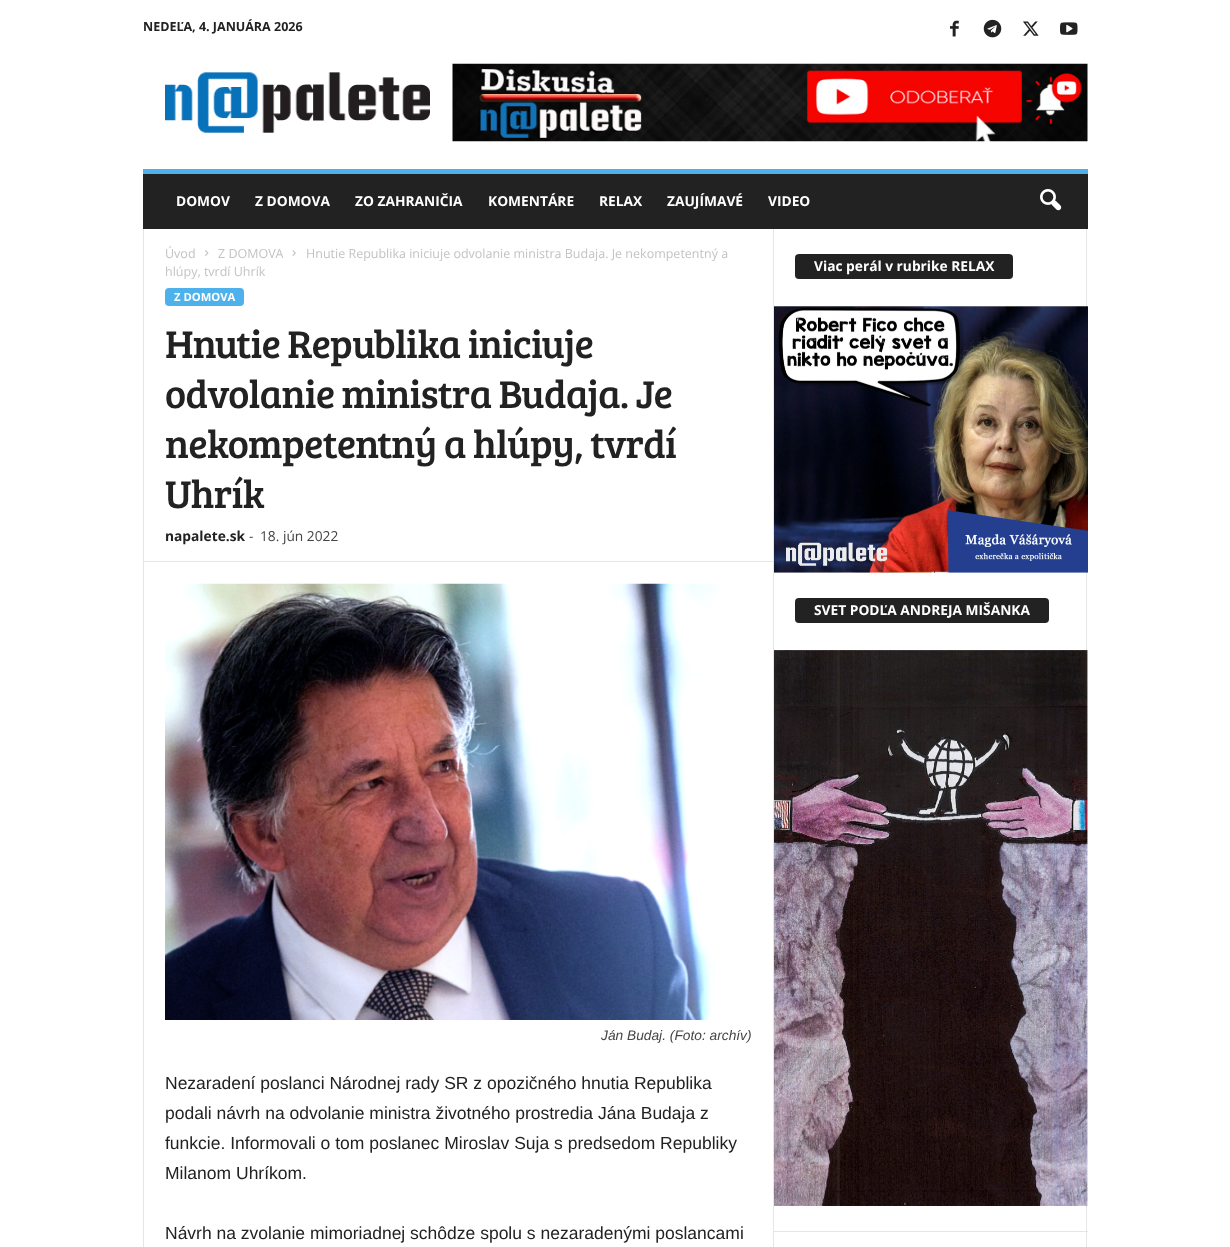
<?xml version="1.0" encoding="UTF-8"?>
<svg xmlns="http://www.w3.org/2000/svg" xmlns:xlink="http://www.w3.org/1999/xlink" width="1230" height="1247">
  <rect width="100%" height="100%" fill="#ffffff" />
  <image x="950" y="20" width="9" height="17" xlink:href="image1.png" />
  <image x="983" y="19" width="19" height="19" xlink:href="image2.png" />
  <image x="1023" y="21" width="16" height="15" xlink:href="image3.png" />
  <image x="1060" y="22" width="18" height="13" xlink:href="image4.png" />
  <image x="165" y="72" width="265" height="61" xlink:href="image5.png" />
  <image x="452" y="63" width="636" height="79" xlink:href="image6.png" />
  <rect x="143" y="174" width="945" height="55" fill="#222222" />
  <rect x="143" y="169" width="945" height="5" fill="#4db2ec" />
  <image x="1040" y="189" width="22" height="22" xlink:href="image7.png" />
  <rect x="143" y="229" width="1" height="1018" fill="#e6e6e6" />
  <image x="205" y="250" width="4" height="6" xlink:href="image8.png" />
  <image x="292" y="250" width="4" height="6" xlink:href="image9.png" />
  <rect x="165" y="288" width="79" height="18" rx="4" fill="#4db2ec" />
  <rect x="144" y="561" width="629" height="1" fill="#e6e6e6" />
  <image x="165" y="583" width="555" height="437" xlink:href="image10.png" />
  <rect x="773" y="229" width="1" height="1018" fill="#e6e6e6" />
  <rect x="795" y="254" width="218" height="25" rx="4" fill="#222222" />
  <rect x="1086" y="229" width="1" height="1018" fill="#e6e6e6" />
  <image x="774" y="306" width="314" height="267" xlink:href="image11.png" />
  <rect x="795" y="598" width="254" height="25" rx="4" fill="#222222" />
  <image x="774" y="650" width="314" height="556" xlink:href="image12.png" />
  <rect x="774" y="1231" width="314" height="1" fill="#e6e6e6" />
  <text x="143" y="31" style="font-family: Open Sans; font-size: 12.5px; font-weight: bold; fill: #222222">NEDEĽA, 4. JANUÁRA 2026</text>
  <text x="176" y="206" style="font-family: Open Sans; font-size: 13.75px; font-weight: bold; fill: #ffffff">DOMOV</text>
  <text x="255" y="206" style="font-family: Open Sans; font-size: 13.75px; font-weight: bold; fill: #ffffff">Z DOMOVA</text>
  <text x="355" y="206" style="font-family: Open Sans; font-size: 13.75px; font-weight: bold; fill: #ffffff">ZO ZAHRANIČIA</text>
  <text x="488" y="206" style="font-family: Open Sans; font-size: 13.75px; font-weight: bold; fill: #ffffff">KOMENTÁRE</text>
  <text x="599" y="206" style="font-family: Open Sans; font-size: 13.75px; font-weight: bold; fill: #ffffff">RELAX</text>
  <text x="667" y="206" style="font-family: Open Sans; font-size: 13.75px; font-weight: bold; fill: #ffffff">ZAUJÍMAVÉ</text>
  <text x="768" y="206" style="font-family: Open Sans; font-size: 13.75px; font-weight: bold; fill: #ffffff">VIDEO</text>
  <text x="165" y="258" style="font-family: Open Sans; font-size: 12.5px; fill: #c3c3c3">Úvod</text>
  <text x="218" y="258" style="font-family: Open Sans; font-size: 12.5px; fill: #c3c3c3">Z DOMOVA</text>
  <text x="306" y="258" style="font-family: Open Sans; font-size: 12.5px; fill: #c3c3c3">Hnutie Republika iniciuje odvolanie ministra Budaja. Je nekompetentný a</text>
  <text x="165" y="276" style="font-family: Open Sans; font-size: 12.5px; fill: #c3c3c3">hlúpy, tvrdí Uhrík</text>
  <text x="174" y="301" style="font-family: Open Sans; font-size: 11.25px; font-weight: bold; fill: #ffffff">Z DOMOVA</text>
  <text x="165" y="358" style="font-family: Bree Serif; font-size: 40px; letter-spacing: -0.8px; fill: #222222">Hnutie Republika iniciuje</text>
  <text x="165" y="408" style="font-family: Bree Serif; font-size: 40px; letter-spacing: -0.8px; fill: #222222">odvolanie ministra Budaja. Je</text>
  <text x="165" y="458" style="font-family: Bree Serif; font-size: 40px; letter-spacing: -0.8px; fill: #222222">nekompetentný a hlúpy, tvrdí</text>
  <text x="165" y="508" style="font-family: Bree Serif; font-size: 40px; letter-spacing: -0.8px; fill: #222222">Uhrík</text>
  <text x="165" y="541" style="font-family: Open Sans; font-size: 13.75px; font-weight: bold; fill: #222222">napalete.sk</text>
  <text x="249" y="541" style="font-family: Open Sans; font-size: 13.75px; fill: #444444">-</text>
  <text x="260" y="541" style="font-family: Open Sans; font-size: 13.75px; fill: #444444">18. jún 2022</text>
  <text x="601" y="1040" style="font-family: Liberation Sans; font-size: 13.75px; font-style: italic; fill: #444444">Ján Budaj. (Foto: archív)</text>
  <text x="165" y="1089" style="font-family: Liberation Sans; font-size: 17.5px; fill: #222222">Nezaradení poslanci Národnej rady SR z opozičného hnutia Republika</text>
  <text x="165" y="1119" style="font-family: Liberation Sans; font-size: 17.5px; fill: #222222">podali návrh na odvolanie ministra životného prostredia Jána Budaja z</text>
  <text x="165" y="1149" style="font-family: Liberation Sans; font-size: 17.5px; fill: #222222">funkcie. Informovali o tom poslanec Miroslav Suja s predsedom Republiky</text>
  <text x="165" y="1179" style="font-family: Liberation Sans; font-size: 17.5px; fill: #222222">Milanom Uhríkom.</text>
  <text x="165" y="1239" style="font-family: Liberation Sans; font-size: 17.5px; fill: #222222">Návrh na zvolanie mimoriadnej schôdze spolu s nezaradenými poslancami</text>
  <text x="814" y="271" style="font-family: Open Sans; font-size: 13.75px; font-weight: bold; fill: #ffffff">Viac perál v rubrike RELAX</text>
  <text x="814" y="615" style="font-family: Open Sans; font-size: 13.75px; font-weight: bold; fill: #ffffff">SVET PODĽA ANDREJA MIŠANKA</text>
</svg>
